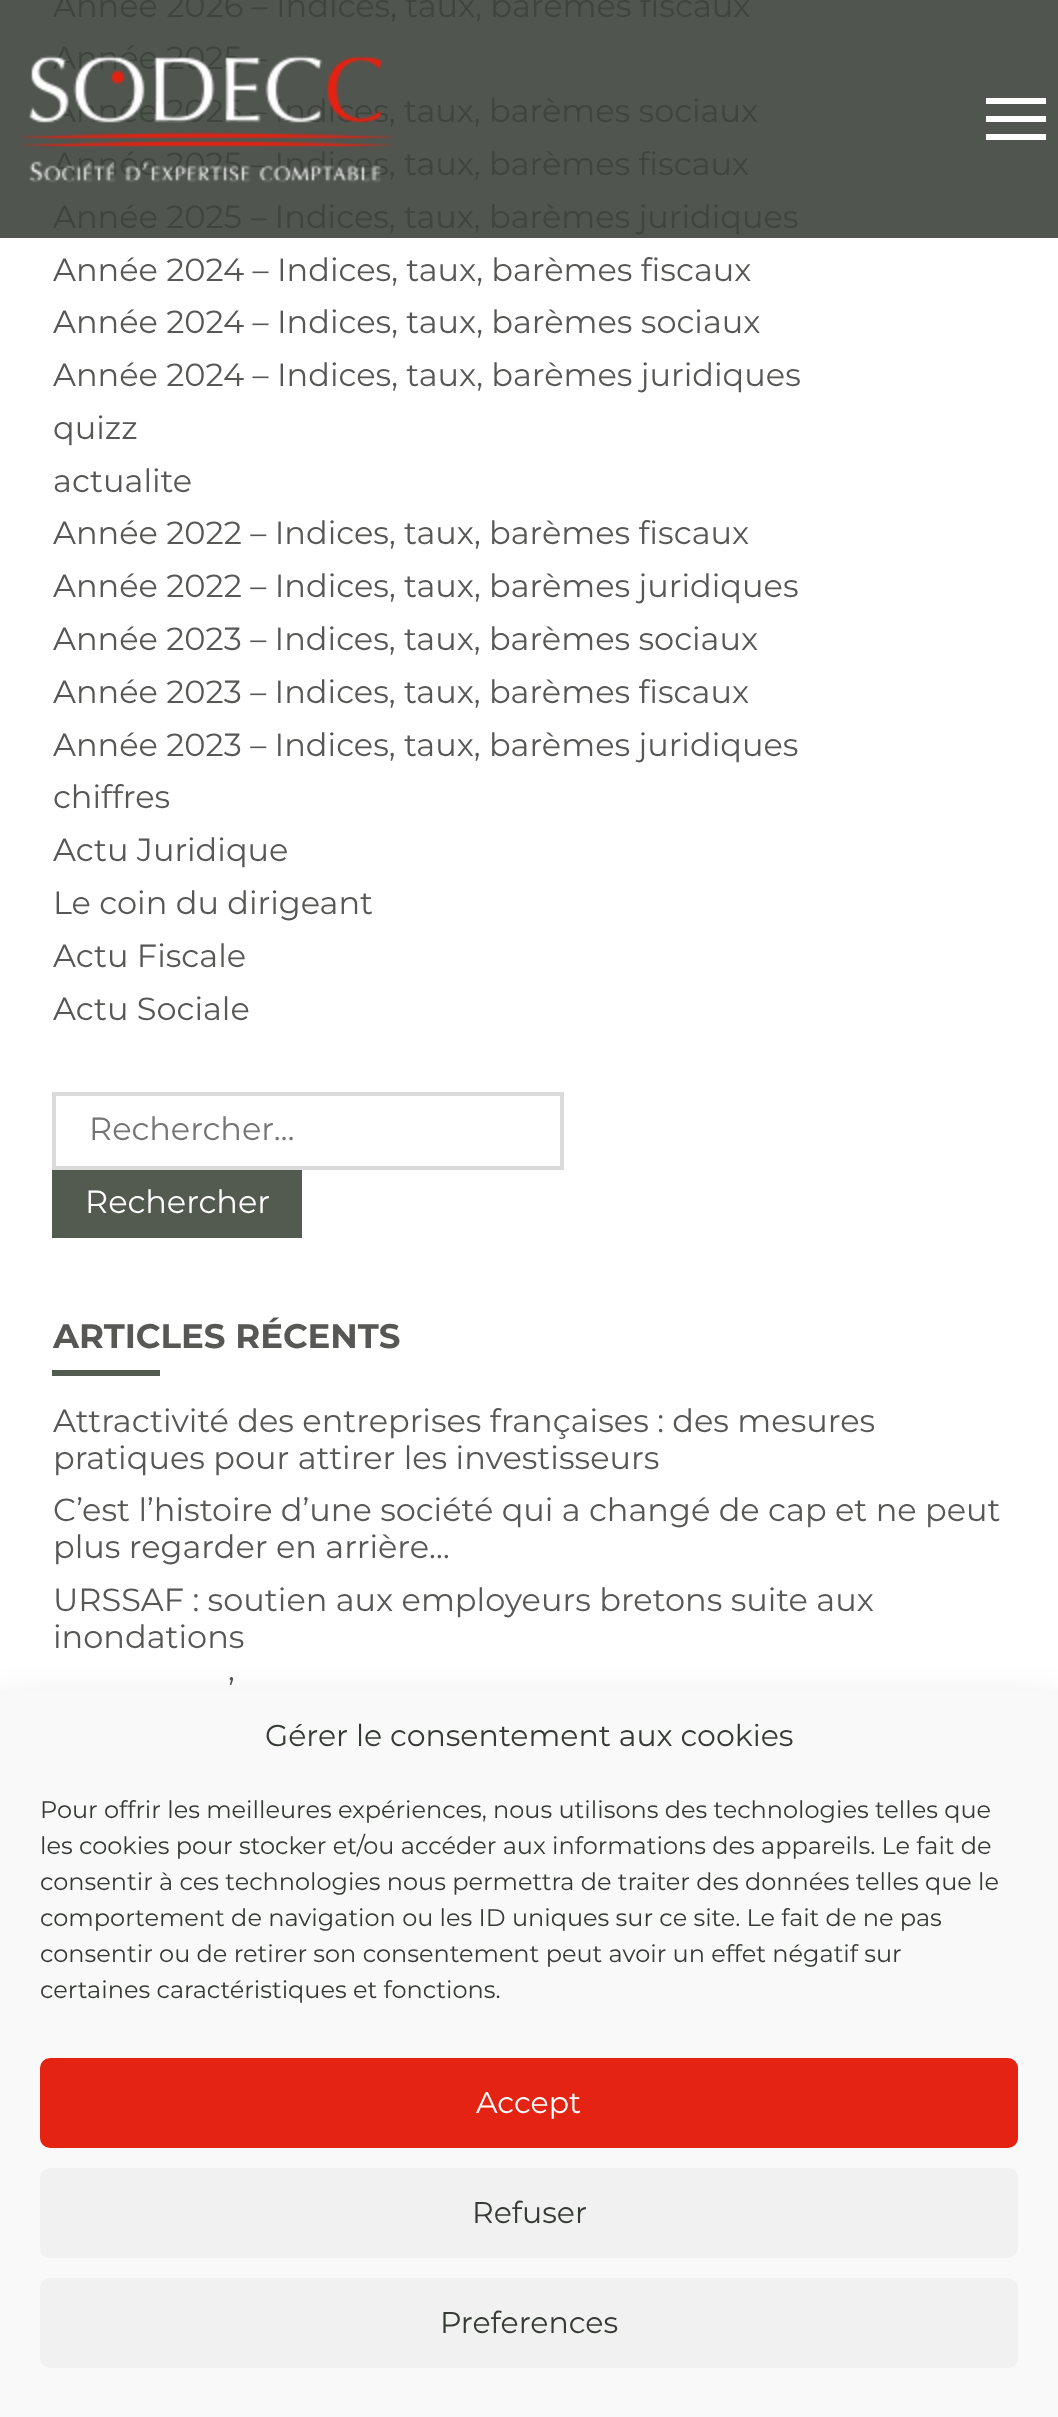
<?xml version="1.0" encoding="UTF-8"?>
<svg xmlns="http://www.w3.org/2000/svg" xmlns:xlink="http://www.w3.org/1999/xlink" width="1058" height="2417">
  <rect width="100%" height="100%" fill="#ffffff" />
  <rect width="1058" height="238" fill="#50554f" />
  <rect x="54" y="1094" width="508" height="74" fill="none" stroke="#dadada" stroke-width="4" />
  <rect x="52" y="1170" width="250" height="68" fill="#535b51" />
  <rect x="52" y="1370" width="108" height="6" fill="#535b51" />
  <rect x="986" y="116" width="60" height="6" fill="#ffffff" />
  <rect x="986" y="98" width="60" height="6" fill="#ffffff" />
  <rect x="986" y="134" width="60" height="6" fill="#ffffff" />
  <rect y="1708" width="1058" height="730" fill="#000000" fill-opacity="0.19" filter="blur(20px)" />
  <rect y="1690" width="1058" height="727" fill="#f9f9f9" />
  <rect x="41" y="2059" width="976" height="88" rx="9" fill="#e42313" stroke="#e42313" stroke-width="2" />
  <rect x="40" y="2168" width="978" height="90" rx="10" fill="#f1f1f1" />
  <rect x="40" y="2278" width="978" height="90" rx="10" fill="#f1f1f1" />
  <text x="53" y="17" style="font-family: Montserrat; font-size: 32px; fill: #3f443e">Année 2026 – Indices, taux, barèmes fiscaux</text>
  <text x="53" y="69" style="font-family: Montserrat; font-size: 32px; fill: #3f443e">Année 2025 –</text>
  <text x="53" y="122" style="font-family: Montserrat; font-size: 32px; fill: #3f443e">Année 2025 – Indices, taux, barèmes sociaux</text>
  <text x="53" y="175" style="font-family: Montserrat; font-size: 32px; fill: #3f443e">Année 2025 – Indices, taux, barèmes fiscaux</text>
  <text x="53" y="228" style="font-family: Montserrat; font-size: 32px; fill: #3f443e">Année 2025 – Indices, taux, barèmes juridiques</text>
  <text x="53" y="281" style="font-family: Montserrat; font-size: 32px; fill: #575756">Année 2024 – Indices, taux, barèmes fiscaux</text>
  <text x="53" y="333" style="font-family: Montserrat; font-size: 32px; fill: #575756">Année 2024 – Indices, taux, barèmes sociaux</text>
  <text x="53" y="386" style="font-family: Montserrat; font-size: 32px; fill: #575756">Année 2024 – Indices, taux, barèmes juridiques</text>
  <text x="53" y="439" style="font-family: Montserrat; font-size: 32px; fill: #575756">quizz</text>
  <text x="53" y="492" style="font-family: Montserrat; font-size: 32px; fill: #575756">actualite</text>
  <text x="53" y="544" style="font-family: Montserrat; font-size: 32px; fill: #575756">Année 2022 – Indices, taux, barèmes fiscaux</text>
  <text x="53" y="597" style="font-family: Montserrat; font-size: 32px; fill: #575756">Année 2022 – Indices, taux, barèmes juridiques</text>
  <text x="53" y="650" style="font-family: Montserrat; font-size: 32px; fill: #575756">Année 2023 – Indices, taux, barèmes sociaux</text>
  <text x="53" y="703" style="font-family: Montserrat; font-size: 32px; fill: #575756">Année 2023 – Indices, taux, barèmes fiscaux</text>
  <text x="53" y="756" style="font-family: Montserrat; font-size: 32px; fill: #575756">Année 2023 – Indices, taux, barèmes juridiques</text>
  <text x="53" y="808" style="font-family: Montserrat; font-size: 32px; fill: #575756">chiffres</text>
  <text x="53" y="861" style="font-family: Montserrat; font-size: 32px; fill: #575756">Actu Juridique</text>
  <text x="53" y="914" style="font-family: Montserrat; font-size: 32px; fill: #575756">Le coin du dirigeant</text>
  <text x="53" y="967" style="font-family: Montserrat; font-size: 32px; fill: #575756">Actu Fiscale</text>
  <text x="53" y="1020" style="font-family: Montserrat; font-size: 32px; fill: #575756">Actu Sociale</text>
  <text x="89" y="1140" style="font-family: Montserrat; font-size: 32px; fill: #757575">Rechercher…</text>
  <text x="85" y="1213" style="font-family: Montserrat; font-size: 32px; fill: #ffffff">Rechercher</text>
  <text x="53" y="1348" style="font-family: Montserrat; font-size: 34px; font-weight: bold; fill: #575756">ARTICLES RÉCENTS</text>
  <text x="53" y="1432" style="font-family: Montserrat; font-size: 32px; fill: #575756">Attractivité des entreprises françaises : des mesures</text>
  <text x="53" y="1469" style="font-family: Montserrat; font-size: 32px; fill: #575756">pratiques pour attirer les investisseurs</text>
  <text x="53" y="1521" style="font-family: Montserrat; font-size: 32px; fill: #575756">C’est l’histoire d’une société qui a changé de cap et ne peut</text>
  <text x="53" y="1558" style="font-family: Montserrat; font-size: 32px; fill: #575756">plus regarder en arrière…</text>
  <text x="53" y="1611" style="font-family: Montserrat; font-size: 32px; fill: #575756">URSSAF : soutien aux employeurs bretons suite aux</text>
  <text x="53" y="1648" style="font-family: Montserrat; font-size: 32px; fill: #575756">inondations</text>
  <text x="228" y="1701" style="font-family: Montserrat; font-size: 32px; fill: #575756">’</text>
  <image x="19" y="55" width="376" height="128" xlink:href="image1.png" />
  <text x="265" y="1746" style="font-family: Montserrat; font-size: 30px; fill: #363a35">Gérer le consentement aux cookies</text>
  <text x="40" y="1818" style="font-family: Montserrat; font-size: 24px; fill: #363a35">Pour offrir les meilleures expériences, nous utilisons des technologies telles que</text>
  <text x="40" y="1854" style="font-family: Montserrat; font-size: 24px; fill: #363a35">les cookies pour stocker et/ou accéder aux informations des appareils. Le fait de</text>
  <text x="40" y="1890" style="font-family: Montserrat; font-size: 24px; fill: #363a35">consentir à ces technologies nous permettra de traiter des données telles que le</text>
  <text x="40" y="1926" style="font-family: Montserrat; font-size: 24px; fill: #363a35">comportement de navigation ou les ID uniques sur ce site. Le fait de ne pas</text>
  <text x="40" y="1962" style="font-family: Montserrat; font-size: 24px; fill: #363a35">consentir ou de retirer son consentement peut avoir un effet négatif sur</text>
  <text x="40" y="1998" style="font-family: Montserrat; font-size: 24px; fill: #363a35">certaines caractéristiques et fonctions.</text>
  <text x="476" y="2113" style="font-family: Montserrat; font-size: 30px; fill: #ffffff">Accept</text>
  <text x="472" y="2223" style="font-family: Montserrat; font-size: 30px; fill: #363a35">Refuser</text>
  <text x="440" y="2333" style="font-family: Montserrat; font-size: 30px; fill: #363a35">Preferences</text>
</svg>
